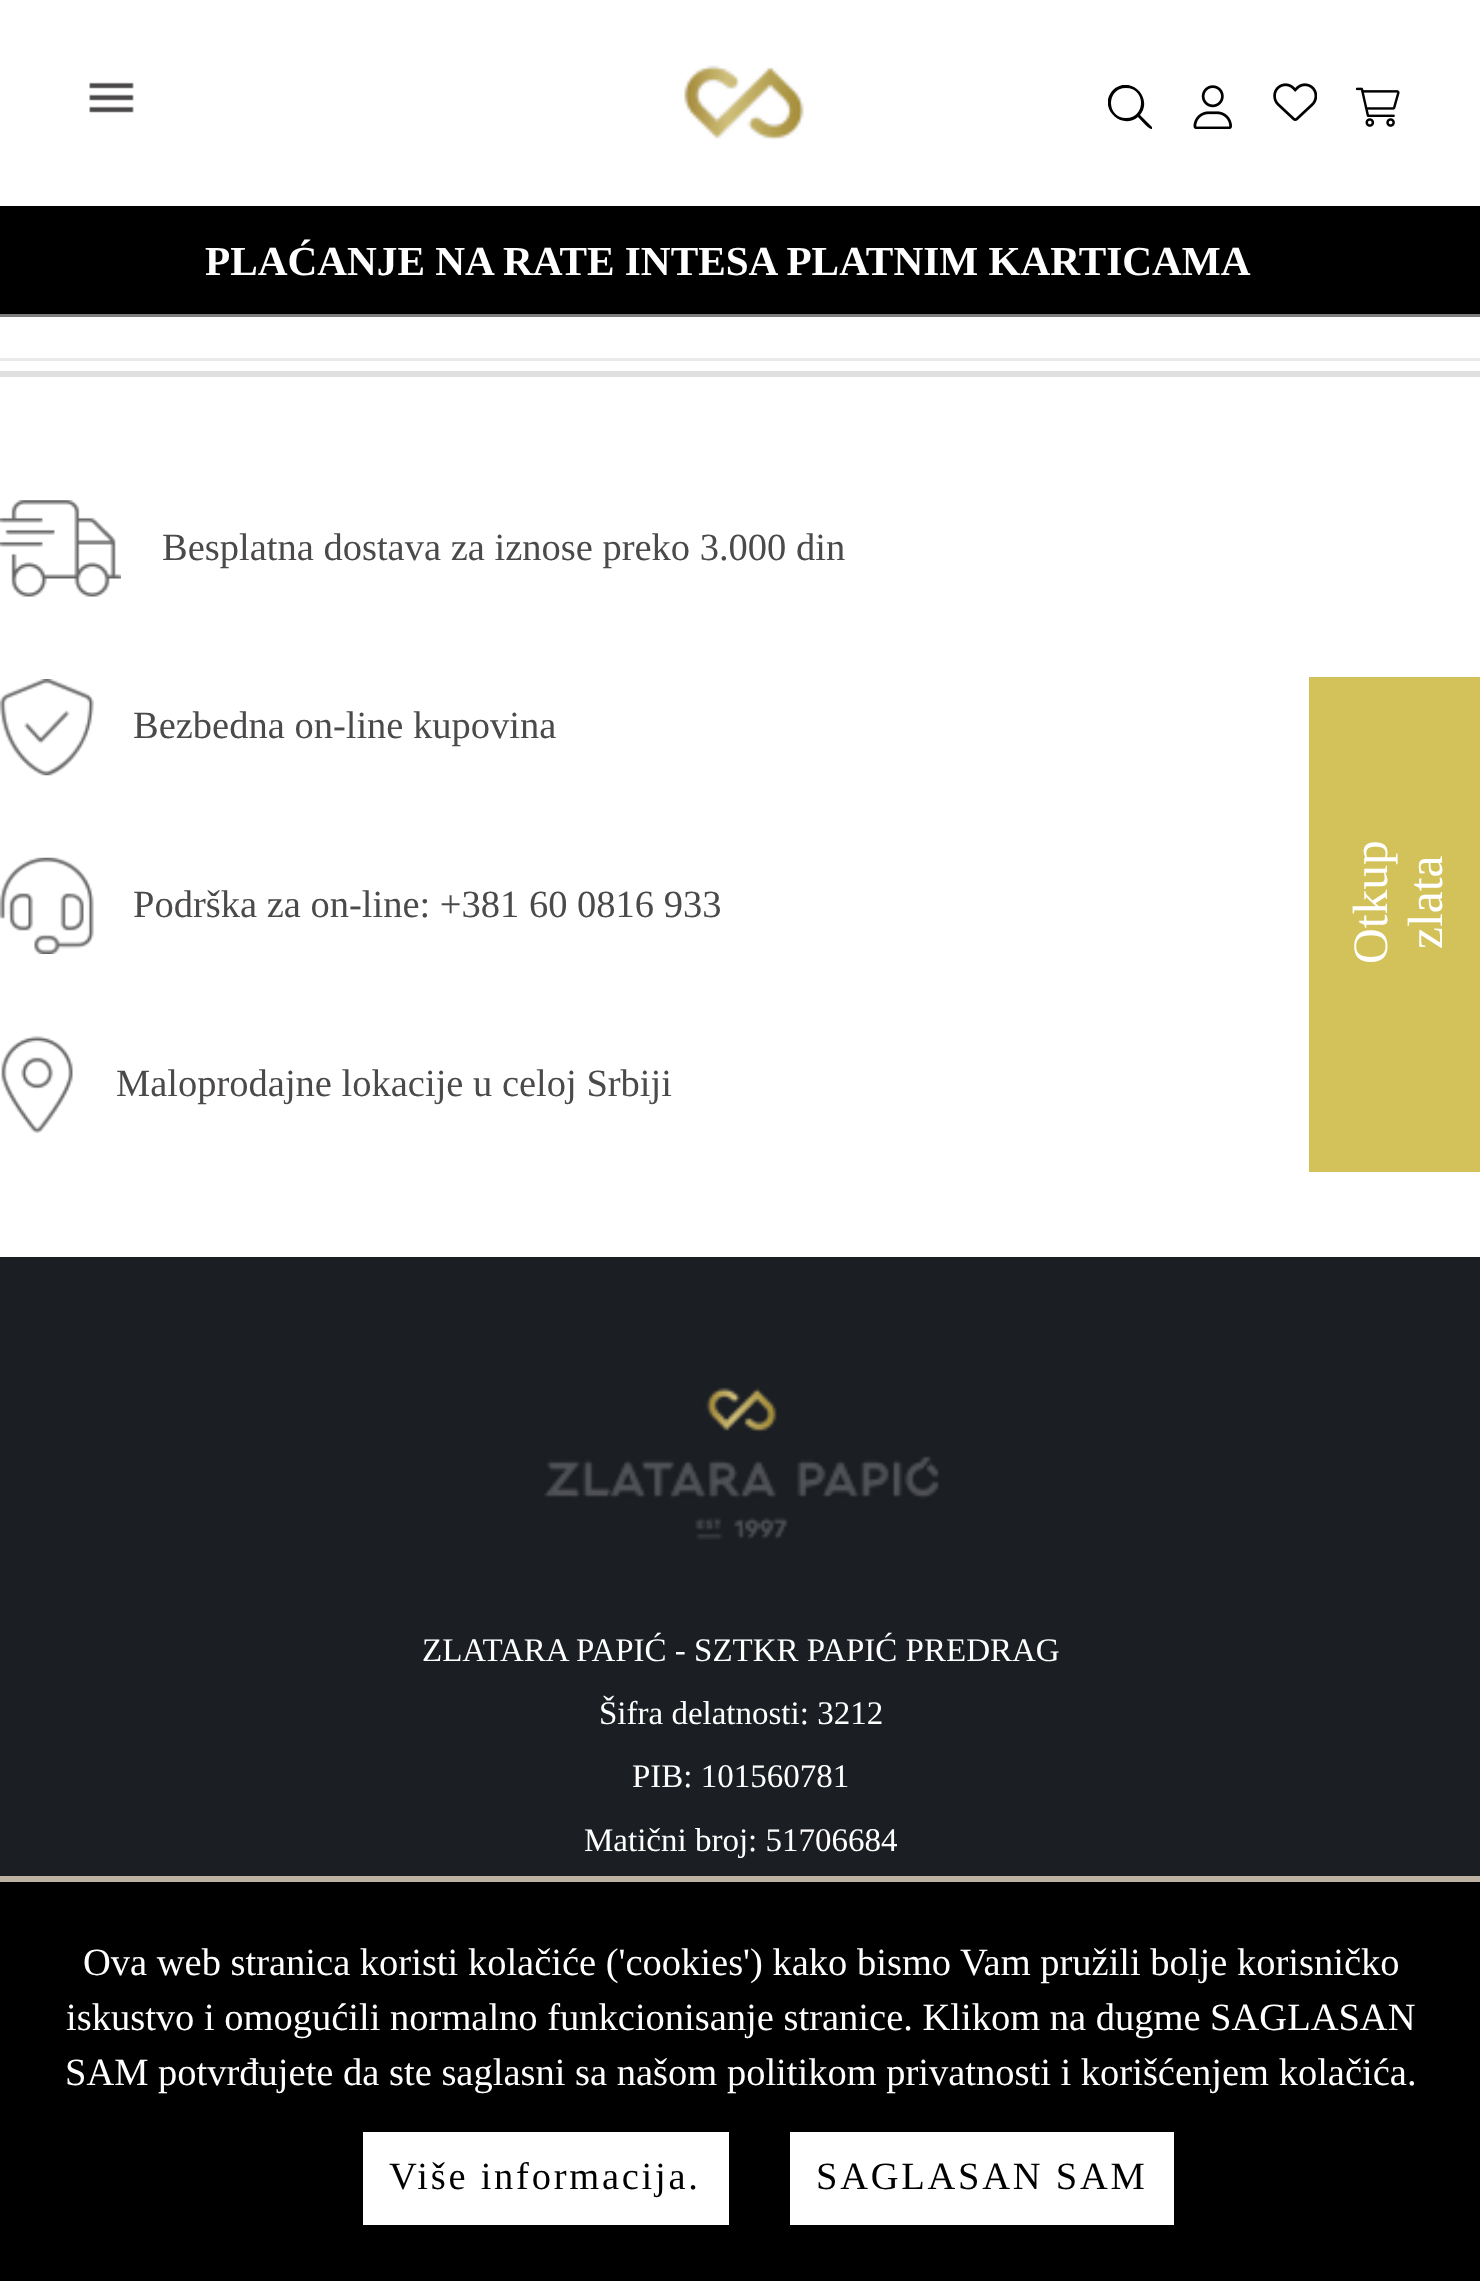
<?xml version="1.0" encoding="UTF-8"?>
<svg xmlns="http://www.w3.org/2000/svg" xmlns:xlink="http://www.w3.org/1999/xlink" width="1480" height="2281">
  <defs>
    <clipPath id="clip1"><rect x="1108" y="85" width="44" height="44" /></clipPath>
  </defs>
  <rect width="100%" height="100%" fill="#ffffff" />
  <rect y="358" width="1480" height="3" fill="#ebeae8" />
  <image x="89" y="82" width="45" height="31" xlink:href="image1.png" />
  <image x="684" y="65" width="120" height="75" xlink:href="image2.png" />
  <g clip-path="url(#clip1)">
    <path d="M 1152 127 l -12 -12 c 14 -17 -10 -41 -27 -25 c -16 17 8 41 25 27 c 2 2 11 13 14 12 c 0 0 1 -1 0 -2 z m -26 -9 c -20 0 -20 -30 0 -30 c 20 0 20 30 0 30 z" fill="#000000" />
  </g>
  <image x="1193" y="85" width="39" height="44" xlink:href="image3.png" />
  <image x="1273" y="83" width="44" height="38" xlink:href="image4.png" />
  <image x="1356" y="87" width="44" height="40" xlink:href="image5.png" />
  <rect y="206" width="1480" height="108" fill="#000000" />
  <rect y="314" width="1480" height="3" fill="#7d7d7d" />
  <rect y="371" width="1480" height="6" fill="#e0e0e0" />
  <image x="0" y="500" width="121" height="97" xlink:href="image6.png" />
  <image x="0" y="679" width="94" height="97" xlink:href="image7.png" />
  <image x="0" y="857" width="94" height="97" xlink:href="image8.png" />
  <image x="1" y="1036" width="72" height="97" xlink:href="image9.png" />
  <rect y="1257" width="1480" height="619" fill="#1b1e23" />
  <image x="544" y="1387" width="395" height="153" xlink:href="image10.png" />
  <rect y="1882" width="1480" height="399" fill="#000000" />
  <rect y="1876" width="1480" height="6" fill="#bdb1a1" />
  <rect x="363" y="2132" width="366" height="93" fill="#ffffff" />
  <rect x="790" y="2132" width="384" height="93" fill="#ffffff" />
  <rect x="1309" y="677" width="171" height="495" fill="#d3c159" />
  <text x="205" y="275" style="font-family: Liberation Serif; font-size: 41.25px; font-weight: bold; fill: #ffffff">PLAĆANJE NA RATE INTESA PLATNIM KARTICAMA</text>
  <text x="162" y="560" style="font-family: Liberation Serif; font-size: 38.5px; fill: #4b4949">Besplatna dostava za iznose preko 3.000 din</text>
  <text x="133" y="738" style="font-family: Liberation Serif; font-size: 38.5px; fill: #4b4949">Bezbedna on-line kupovina</text>
  <text x="133" y="917" style="font-family: Liberation Serif; font-size: 38.5px; fill: #4b4949">Podrška za on-line: +381 60 0816 933</text>
  <text x="116" y="1096" style="font-family: Liberation Serif; font-size: 38.5px; fill: #4b4949">Maloprodajne lokacije u celoj Srbiji</text>
  <text x="422" y="1661" style="font-family: Liberation Serif; font-size: 33px; fill: #ffffff">ZLATARA PAPIĆ - SZTKR PAPIĆ PREDRAG</text>
  <text x="599" y="1724" style="font-family: Liberation Serif; font-size: 33px; fill: #ffffff">Šifra delatnosti: 3212</text>
  <text x="632" y="1787" style="font-family: Liberation Serif; font-size: 33px; fill: #ffffff">PIB: 101560781</text>
  <text x="584" y="1851" style="font-family: Liberation Serif; font-size: 33px; fill: #ffffff">Matični broj: 51706684</text>
  <text x="83" y="1975" style="font-family: Liberation Serif; font-size: 38.5px; fill: #ffffff">Ova web stranica koristi kolačiće ('cookies') kako bismo Vam pružili bolje korisničko</text>
  <text x="66" y="2030" style="font-family: Liberation Serif; font-size: 38.5px; fill: #ffffff">iskustvo i omogućili normalno funkcionisanje stranice. Klikom na dugme SAGLASAN</text>
  <text x="65" y="2085" style="font-family: Liberation Serif; font-size: 38.5px; fill: #ffffff">SAM potvrđujete da ste saglasni sa našom politikom privatnosti i korišćenjem kolačića.</text>
  <text x="389" y="2189" style="font-family: Liberation Serif; font-size: 38.5px; letter-spacing: 2.75px; fill: #000000">Više informacija.</text>
  <text x="816" y="2189" style="font-family: Liberation Serif; font-size: 38.5px; letter-spacing: 2.75px; fill: #000000">SAGLASAN SAM</text>
  <text x="1387" y="964" transform="rotate(-90 1387 964)" style="font-family: Liberation Serif; font-size: 49.5px; fill: #ffffff">Otkup</text>
  <text x="1442" y="949" transform="rotate(-90 1442 949)" style="font-family: Liberation Serif; font-size: 49.5px; fill: #ffffff">zlata</text>
</svg>
